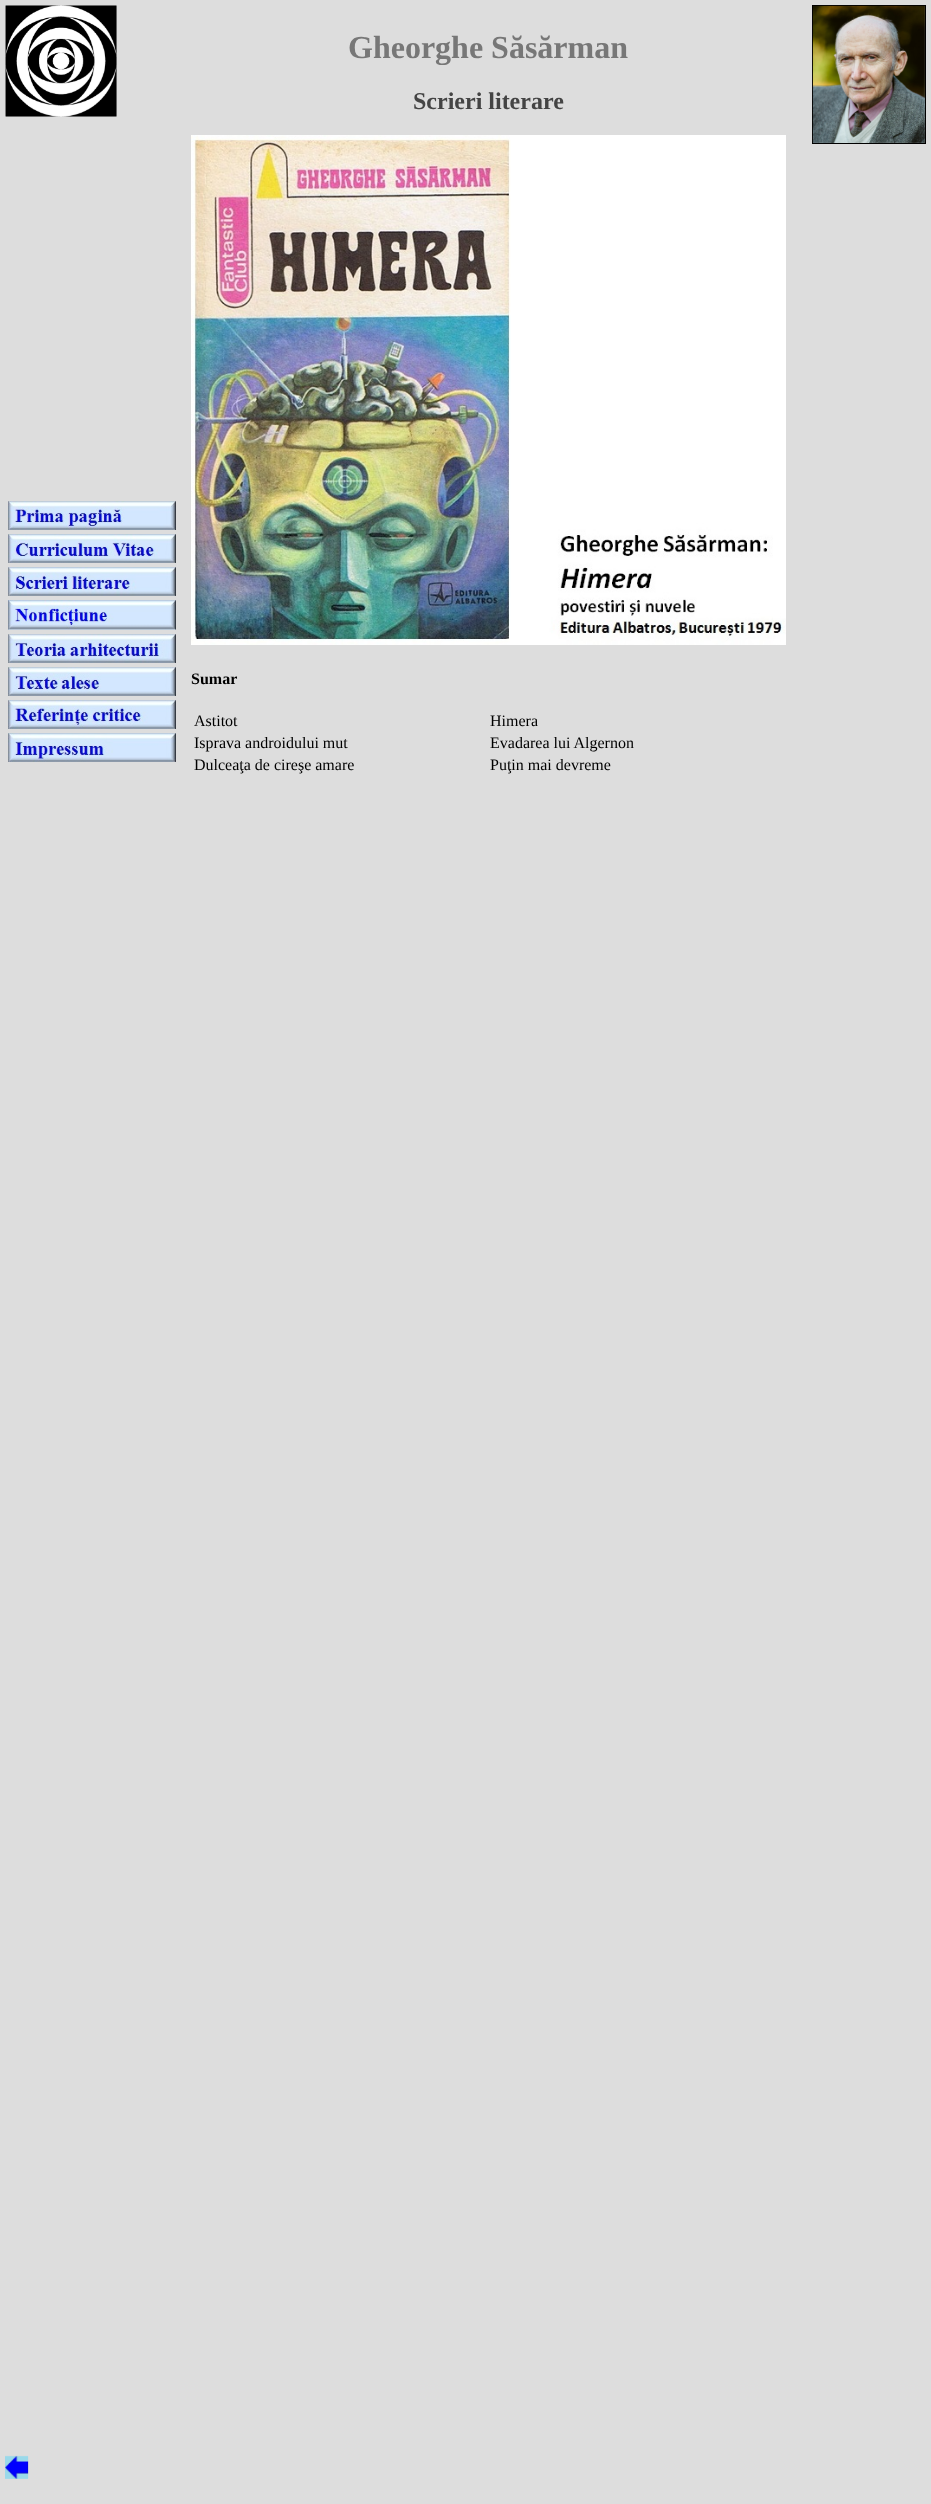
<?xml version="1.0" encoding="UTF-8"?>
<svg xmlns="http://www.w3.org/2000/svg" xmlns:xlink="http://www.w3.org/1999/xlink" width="931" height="2504">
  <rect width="100%" height="100%" fill="#dddddd" />
  <image x="5" y="5" width="112" height="112" xlink:href="image1.png" />
  <image x="8" y="501" width="168" height="29" xlink:href="image2.png" />
  <image x="8" y="534" width="168" height="29" xlink:href="image3.png" />
  <image x="8" y="567" width="168" height="29" xlink:href="image4.png" />
  <image x="8" y="600" width="168" height="30" xlink:href="image5.png" />
  <image x="8" y="634" width="168" height="29" xlink:href="image6.png" />
  <image x="8" y="667" width="168" height="29" xlink:href="image7.png" />
  <image x="8" y="700" width="168" height="29" xlink:href="image8.png" />
  <image x="8" y="733" width="168" height="29" xlink:href="image9.png" />
  <image x="5" y="2455" width="24" height="24" xlink:href="image10.png" />
  <image x="191" y="135" width="595" height="510" xlink:href="image11.png" />
  <rect x="812.5" y="5.5" width="113" height="138" fill="none" stroke="#000000" />
  <image x="812" y="5" width="113" height="138" xlink:href="image12.png" />
  <text x="348" y="58" style="font-family: Liberation Serif; font-size: 32px; font-weight: bold; fill: #777777">Gheorghe Săsărman</text>
  <text x="413" y="109" style="font-family: Liberation Serif; font-size: 24px; font-weight: bold; fill: #444444">Scrieri literare</text>
  <text x="191" y="684" style="font-family: Liberation Serif; font-size: 16px; font-weight: bold; fill: #000000">Sumar</text>
  <text x="194" y="726" style="font-family: Liberation Serif; font-size: 16px; fill: #000000">Astitot</text>
  <text x="490" y="726" style="font-family: Liberation Serif; font-size: 16px; fill: #000000">Himera</text>
  <text x="194" y="748" style="font-family: Liberation Serif; font-size: 16px; fill: #000000">Isprava androidului mut</text>
  <text x="490" y="748" style="font-family: Liberation Serif; font-size: 16px; fill: #000000">Evadarea lui Algernon</text>
  <text x="194" y="770" style="font-family: Liberation Serif; font-size: 16px; fill: #000000">Dulceaţa de cireşe amare</text>
  <text x="490" y="770" style="font-family: Liberation Serif; font-size: 16px; fill: #000000">Puţin mai devreme</text>
</svg>
